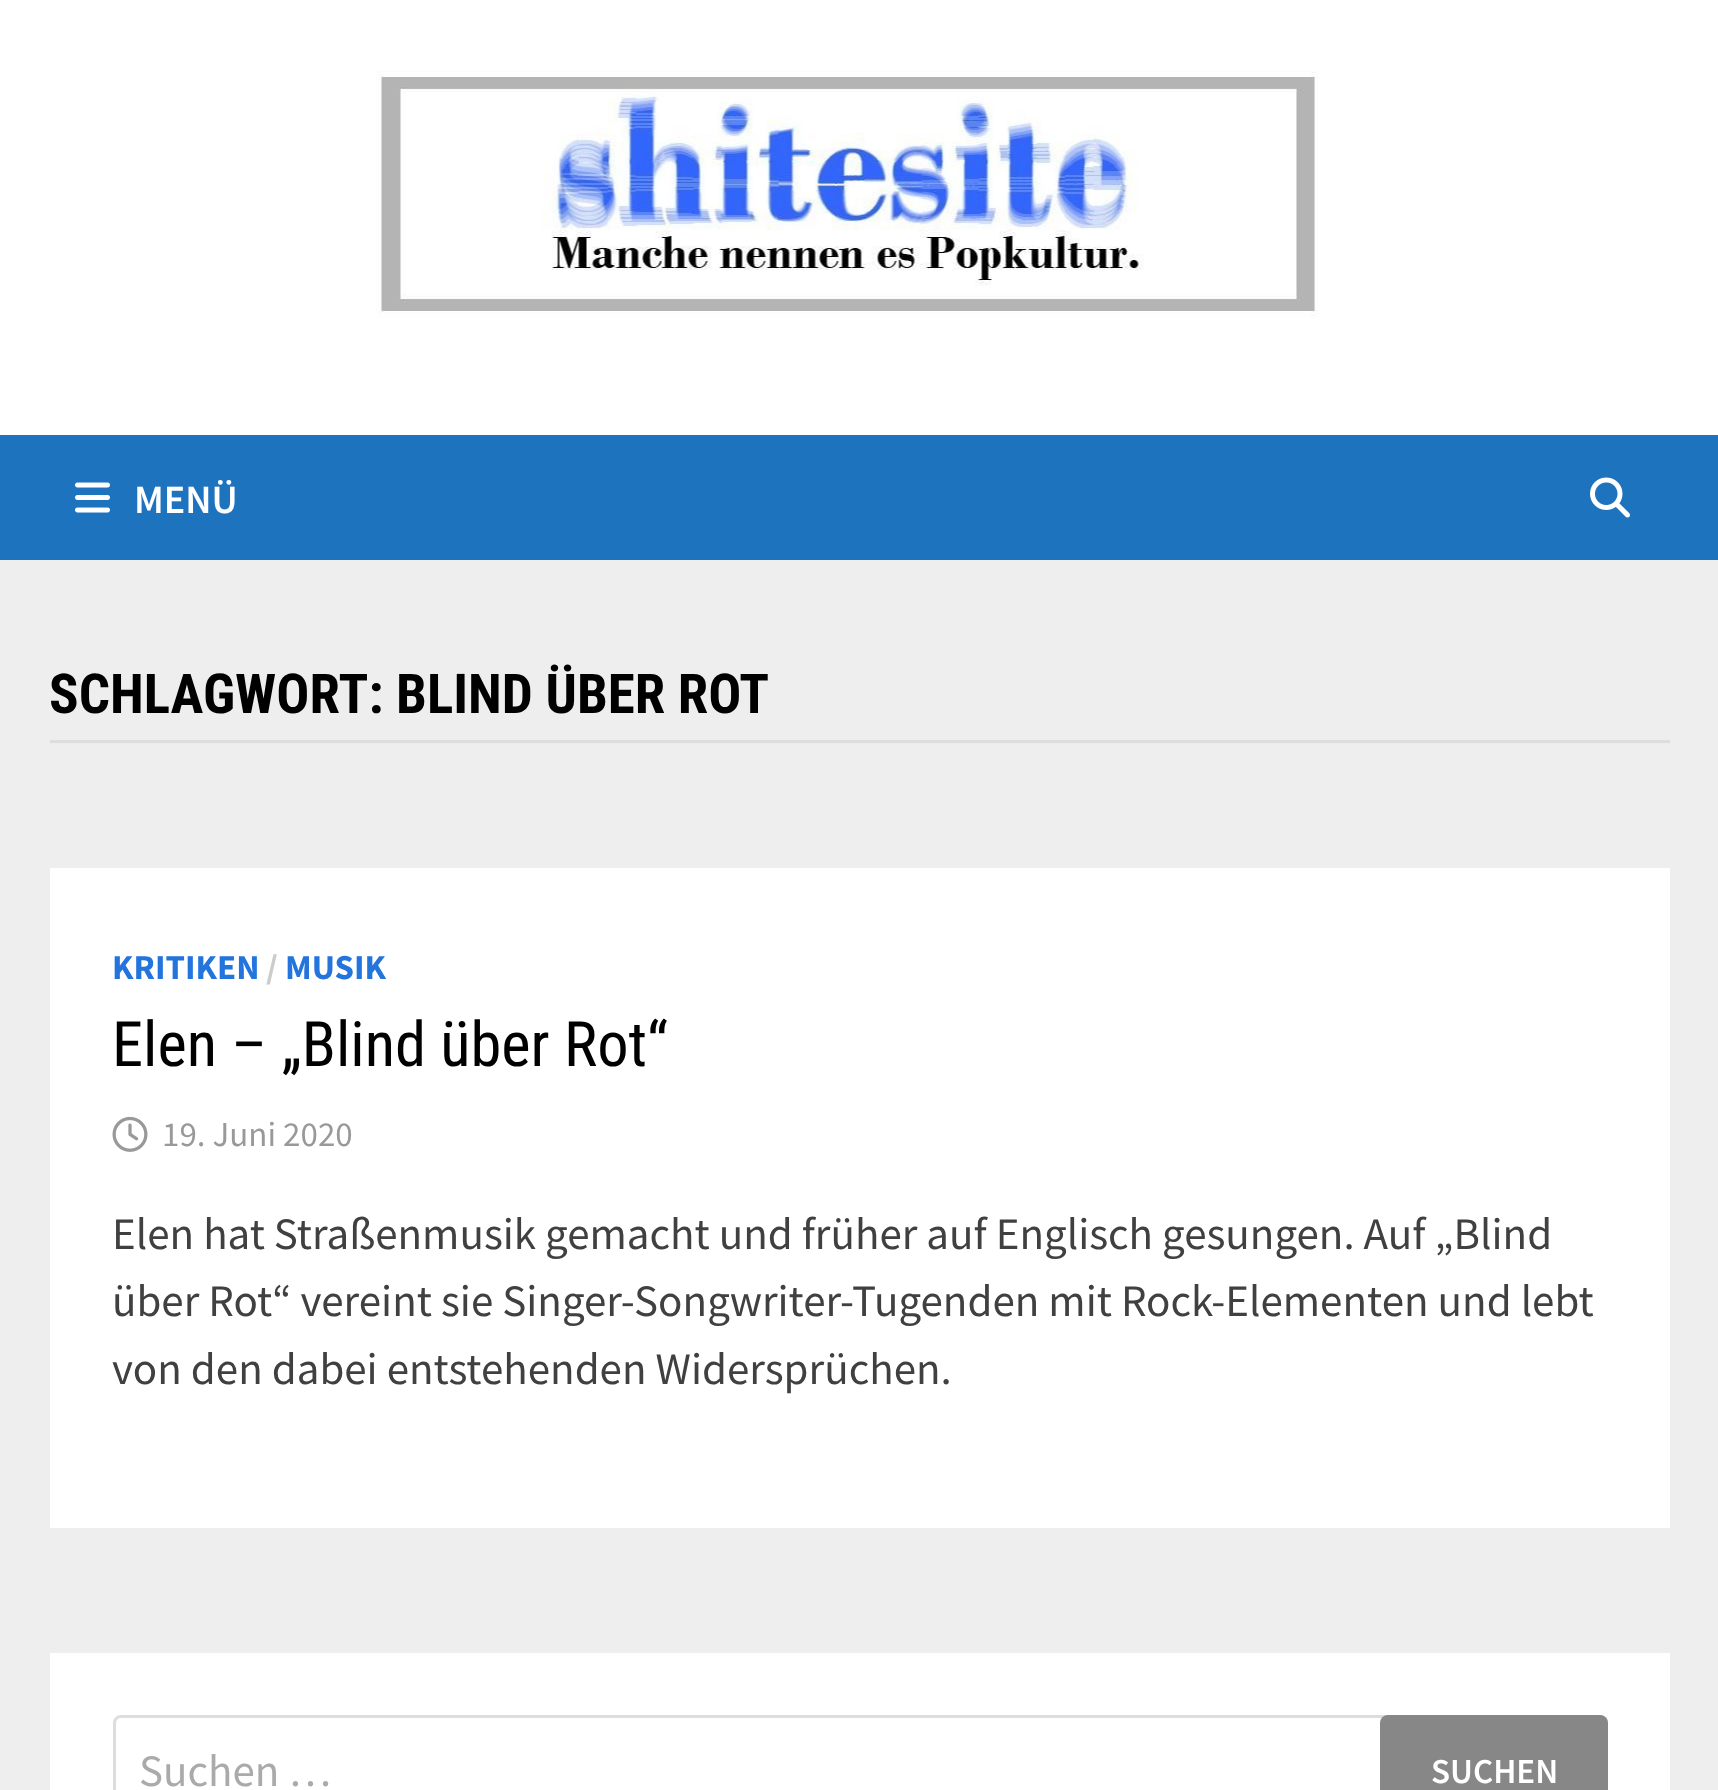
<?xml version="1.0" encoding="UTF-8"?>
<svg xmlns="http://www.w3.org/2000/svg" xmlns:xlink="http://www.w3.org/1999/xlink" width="1718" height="1790">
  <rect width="100%" height="100%" fill="#ffffff" />
  <image x="376" y="70" width="943" height="248" xlink:href="image1.png" />
  <rect y="435" width="1718" height="125" fill="#1e73be" />
  <image x="75" y="482" width="35" height="31" xlink:href="image2.png" />
  <image x="1590" y="477" width="40" height="41" xlink:href="image3.png" />
  <rect y="560" width="1718" height="1230" fill="#eeeeee" />
  <rect x="50" y="740" width="1620" height="3" fill="#dddddd" />
  <rect x="50" y="868" width="1620" height="660" fill="#ffffff" />
  <image x="112" y="1116" width="36" height="36" xlink:href="image4.png" />
  <rect x="50" y="1653" width="1620" height="137" fill="#ffffff" />
  <rect x="114.5" y="1716.5" width="1492" height="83" rx="6.5" fill="none" stroke="#dddddd" stroke-width="3" />
  <rect x="1380" y="1715" width="228" height="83" rx="8" fill="#878787" />
  <text x="134" y="513" style="font-family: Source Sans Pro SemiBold; font-size: 40px; font-weight: 600; fill: #ffffff">MENÜ</text>
  <text x="49" y="713" style="font-family: Roboto Condensed; font-size: 55px; font-weight: bold; fill: #000000">SCHLAGWORT: BLIND ÜBER ROT</text>
  <text x="112" y="979" style="font-family: Source Sans Pro; font-size: 35px; font-weight: bold; fill: #2374dd">KRITIKEN</text>
  <text x="266" y="979" style="font-family: Source Sans Pro; font-size: 35px; font-weight: bold; fill: #cccccc">/</text>
  <text x="285" y="979" style="font-family: Source Sans Pro; font-size: 35px; font-weight: bold; fill: #2374dd">MUSIK</text>
  <text x="112" y="1066" style="font-family: Roboto Condensed; font-size: 62.5px; fill: #000000">Elen – „Blind über Rot“</text>
  <text x="162" y="1146" style="font-family: Source Sans Pro; font-size: 35px; fill: #999999">19. Juni 2020</text>
  <text x="112" y="1249" style="font-family: Source Sans Pro; font-size: 45px; fill: #404040">Elen hat Straßenmusik gemacht und früher auf Englisch gesungen. Auf „Blind</text>
  <text x="112" y="1316" style="font-family: Source Sans Pro; font-size: 45px; fill: #404040">über Rot“ vereint sie Singer-Songwriter-Tugenden mit Rock-Elementen und lebt</text>
  <text x="112" y="1384" style="font-family: Source Sans Pro; font-size: 45px; fill: #404040">von den dabei entstehenden Widersprüchen.</text>
  <text x="139" y="1786" style="font-family: Source Sans Pro; font-size: 45px; fill: #aaaaaa">Suchen …</text>
  <text x="1431" y="1783" style="font-family: Source Sans Pro SemiBold; font-size: 35px; font-weight: 600; fill: #ffffff">SUCHEN</text>
</svg>
